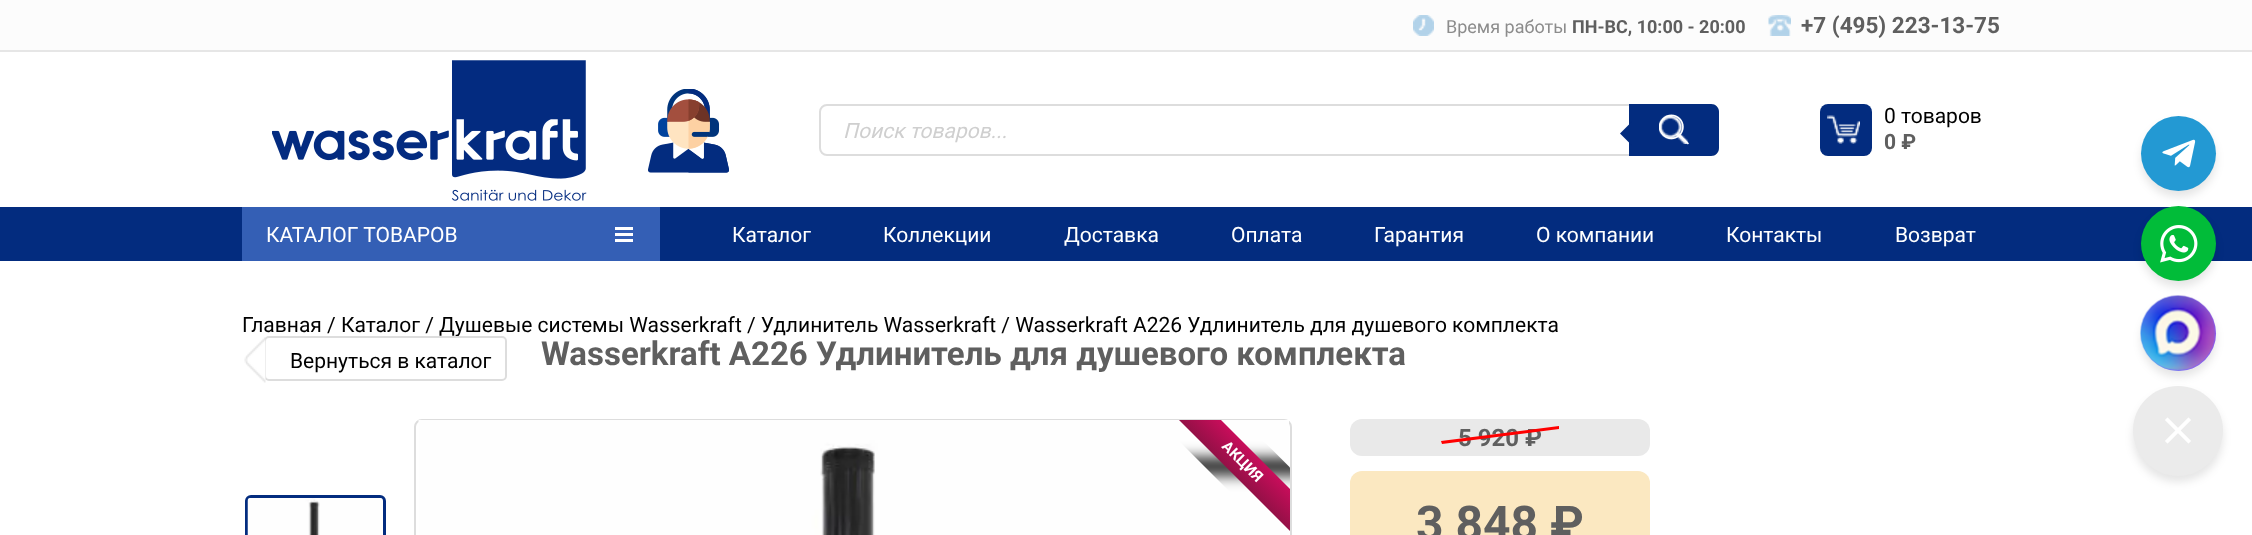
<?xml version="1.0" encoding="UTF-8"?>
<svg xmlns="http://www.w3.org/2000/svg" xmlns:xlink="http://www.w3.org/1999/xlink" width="2252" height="535">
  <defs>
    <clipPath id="clip1"><rect x="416" y="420" width="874" height="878" /></clipPath>
    <clipPath id="clip2"><path d="M 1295 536 v -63.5 l -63.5 -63.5 h -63.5 v 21 l 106 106 z" /></clipPath>
    <clipPath id="clip3"><rect x="416" y="420" width="874" height="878" /></clipPath>
    <linearGradient id="g1" gradientUnits="userSpaceOnUse" x1="1253" y1="451" x2="1231" y2="473"><stop offset="0" stop-color="#c90d5b" /><stop offset="1" stop-color="#931046" /></linearGradient>
  </defs>
  <rect width="100%" height="100%" fill="#ffffff" />
  <rect width="2252" height="50" fill="#fcfcfc" />
  <rect y="50" width="2252" height="2" fill="#e6e6e6" />
  <image x="1413" y="15" width="21" height="21" xlink:href="image1.png" />
  <image x="1768" y="15" width="23" height="21" xlink:href="image2.png" />
  <image x="272" y="60" width="315" height="141" xlink:href="image3.png" />
  <image x="648" y="89" width="81" height="84" xlink:href="image4.png" />
  <rect x="820" y="105" width="898" height="50" rx="7" fill="none" stroke="#dddddd" stroke-width="2" />
  <path d="M 1629 104 h 82 c 4.5 0 8 3.5 8 8 v 36 c 0 4.5 -3.5 8 -8 8 h -82 z" fill="#032c7f" />
  <image x="1659" y="115" width="29" height="29" xlink:href="image5.png" />
  <path d="M 1632 121.5 v 24 l -12 -12 z" fill="#032c7f" />
  <image x="1659" y="114" width="30" height="31" xlink:href="image6.png" />
  <rect x="1820" y="104" width="52" height="52" rx="8" fill="#032c7f" />
  <image x="1827" y="115" width="33" height="29" xlink:href="image7.png" />
  <rect y="207" width="2252" height="54" fill="#032c7f" />
  <rect x="242" y="207" width="418" height="54" fill="#345fb5" />
  <rect x="615" y="233" width="18" height="3" fill="#ffffff" />
  <rect x="615" y="227" width="18" height="3" fill="#ffffff" />
  <rect x="615" y="239" width="18" height="3" fill="#ffffff" />
  <rect x="415" y="420" width="876" height="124" rx="7" fill="none" stroke="#dddddd" stroke-width="2" />
  <image x="418" y="420" width="871" height="115" xlink:href="image9.png" />
  <g clip-path="url(#clip1)">
    <g clip-path="url(#clip2)">
      <rect x="1160" y="459" width="165" height="15" fill="#000000" filter="blur(7.5px)" />
    </g>
  </g>
  <g clip-path="url(#clip3)">
    <path d="M 1295 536 l -127 -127 h 42 l 85 85 z" fill="url(#g1)" />
  </g>
  <rect x="246.5" y="496.5" width="138" height="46" rx="4.5" fill="none" stroke="#032c7f" stroke-width="3" />
  <image x="247" y="498" width="136" height="37" xlink:href="image10.png" />
  <rect x="1350" y="419" width="300" height="37" rx="12" fill="#e9e9e9" />
  <rect x="1350" y="471" width="300" height="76" rx="12" fill="#fbe8c1" />
  <rect x="2141" y="122" width="75" height="75" rx="37.5" fill="#000000" fill-opacity="0.1" filter="blur(4.5px)" />
  <circle cx="2178.5" cy="153.5" r="37.5" fill="#2399d3" />
  <image x="2162" y="139" width="34" height="29" xlink:href="image11.png" />
  <rect x="2141" y="212" width="75" height="75" rx="37.5" fill="#000000" fill-opacity="0.1" filter="blur(4.5px)" />
  <circle cx="2178.5" cy="243.5" r="37.5" fill="#01bc39" />
  <image x="2160" y="225" width="38" height="38" xlink:href="image12.png" />
  <rect x="2141" y="302" width="75" height="75" rx="37.5" fill="#000000" fill-opacity="0.1" filter="blur(4.5px)" />
  <circle cx="2178.5" cy="333.5" r="37.5" fill="#7b61ff" />
  <image x="2140" y="295" width="76" height="76" xlink:href="image13.png" />
  <rect x="2133" y="392" width="90" height="90" rx="45" fill="#000000" fill-opacity="0.1" filter="blur(4.5px)" />
  <path d="M 2178 476 c -25 0 -45 -21 -45 -46 c 0 -24 20 -44 45 -44 c 25 0 45 20 45 44 c 0 25 -20 46 -45 46 z" fill="#ebebeb" />
  <image x="2165" y="417" width="26" height="27" xlink:href="image14.png" />
  <text x="1446" y="33" style="font-family: Roboto; font-size: 18px; fill: #8c8c8c">Время работы</text>
  <text x="1572" y="33" style="font-family: Roboto; font-size: 18px; font-weight: bold; fill: #5f5f5f">ПН-ВC, 10:00 - 20:00</text>
  <text x="1801" y="33" style="font-family: Roboto; font-size: 22.5px; font-weight: bold; fill: #5f5f5f">+7 (495) 223-13-75</text>
  <text x="843" y="138" style="font-family: Roboto; font-size: 21px; font-style: italic; fill: #cfcfcf">Поиск товаров...</text>
  <text x="1884" y="123" style="font-family: Roboto; font-size: 21px; fill: #000000">0 товаров</text>
  <text x="1884" y="149" style="font-family: Roboto; font-size: 21px; font-weight: bold; fill: #5f5f5f">0 ₽</text>
  <text x="266" y="242" style="font-family: Roboto; font-size: 21px; fill: #ffffff">КАТАЛОГ ТОВАРОВ</text>
  <text x="732" y="242" style="font-family: Roboto; font-size: 21px; fill: #ffffff">Каталог</text>
  <text x="883" y="242" style="font-family: Roboto; font-size: 21px; fill: #ffffff">Коллекции</text>
  <text x="1064" y="242" style="font-family: Roboto; font-size: 21px; fill: #ffffff">Доставка</text>
  <text x="1231" y="242" style="font-family: Roboto; font-size: 21px; fill: #ffffff">Оплата</text>
  <text x="1374" y="242" style="font-family: Roboto; font-size: 21px; fill: #ffffff">Гарантия</text>
  <text x="1536" y="242" style="font-family: Roboto; font-size: 21px; fill: #ffffff">О компании</text>
  <text x="1726" y="242" style="font-family: Roboto; font-size: 21px; fill: #ffffff">Контакты</text>
  <text x="1895" y="242" style="font-family: Roboto; font-size: 21px; fill: #ffffff">Возврат</text>
  <text x="242" y="332" style="font-family: Roboto; font-size: 21px; fill: #000000">Главная / Каталог / Душевые системы Wasserkraft / Удлинитель Wasserkraft / Wasserkraft A226 Удлинитель для душевого комплекта</text>
  <rect x="265" y="337" width="241" height="43" rx="4" fill="none" stroke="#dddddd" stroke-width="2" />
  <image x="244" y="337" width="22" height="46" xlink:href="image8.png" />
  <text x="290" y="368" style="font-family: Roboto; font-size: 21px; fill: #000000">Вернуться в каталог</text>
  <text x="541" y="365" style="font-family: Roboto; font-size: 33px; font-weight: bold; fill: #5f5f5f">Wasserkraft A226 Удлинитель для душевого комплекта</text>
  <text x="1221" y="447" transform="rotate(45 1221 447)" style="font-family: Roboto; font-size: 15px; font-weight: bold; fill: #ffffff">АКЦИЯ</text>
  <text x="1458" y="446" style="font-family: Roboto; font-size: 24px; font-weight: bold; fill: #5f5f5f">5 920 ₽</text>
  <path d="M 1441 441 l 118 -15 v 3 l -117 15 z" fill="#ff0000" />
  <text x="1416" y="540" style="font-family: Roboto; font-size: 48px; font-weight: bold; fill: #5f5f5f">3 848 ₽</text>
</svg>
